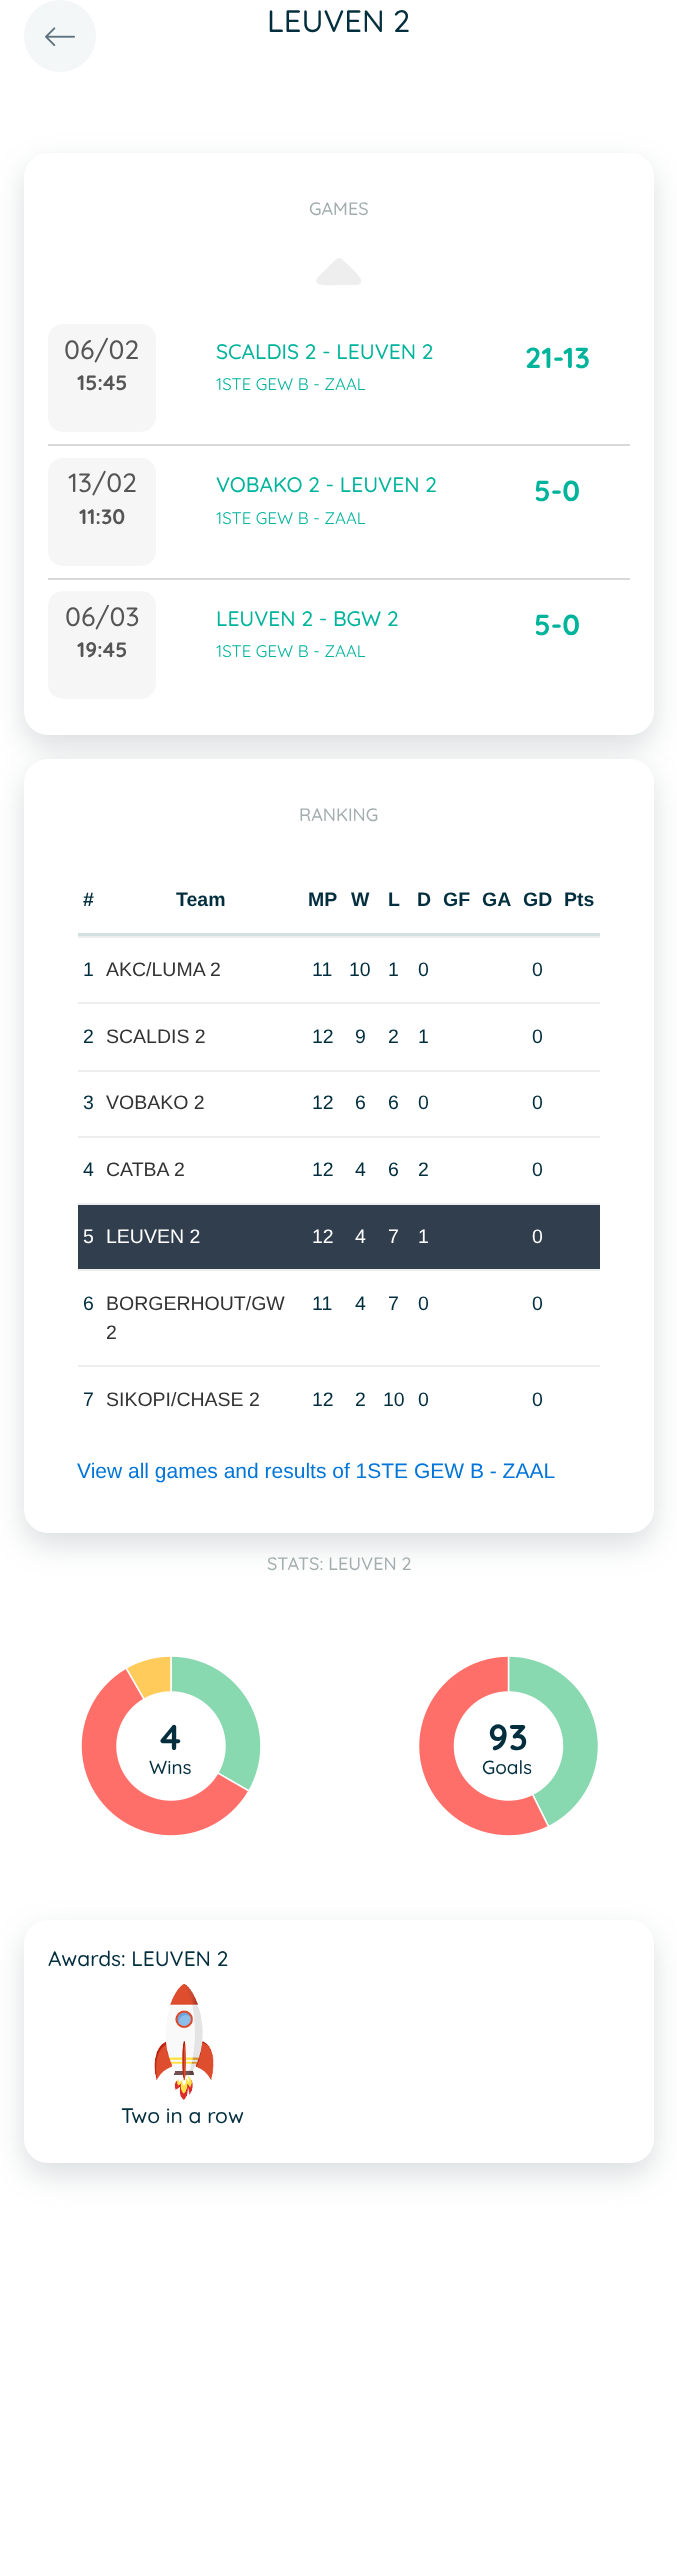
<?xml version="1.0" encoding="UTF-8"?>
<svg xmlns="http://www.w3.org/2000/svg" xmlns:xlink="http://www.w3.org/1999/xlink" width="677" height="2555">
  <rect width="100%" height="100%" fill="#ffffff" />
  <circle cx="60" cy="36" r="35" fill="#f4f7f7" stroke="#f4f7f7" stroke-width="2" />
  <image x="45" y="27" width="30" height="20" xlink:href="image1.png" />
  <rect x="24" y="165" width="630" height="582" rx="24" fill="#475c5d" fill-opacity="0.2" filter="blur(15px)" />
  <rect x="24" y="153" width="630" height="582" rx="24" fill="#ffffff" />
  <path d="M 342 259 c -3 -3 -7 1 -9 3 l -12 12 c -3 3 -7 6 -3 10 c 3 2 17 1 21 1 h 12 c 3 0 12 1 10 -5 c 0 -4 -15 -17 -19 -21 z" fill="#eeeeee" />
  <rect x="48" y="444" width="582" height="2" fill="#d9d9d9" />
  <rect x="48" y="324" width="108" height="108" rx="15" fill="#f6f6f6" />
  <rect x="48" y="578" width="582" height="2" fill="#d9d9d9" />
  <rect x="48" y="458" width="108" height="108" rx="15" fill="#f6f6f6" />
  <rect x="48" y="591" width="108" height="108" rx="15" fill="#f6f6f6" />
  <rect x="24" y="771" width="630" height="774" rx="24" fill="#475c5d" fill-opacity="0.2" filter="blur(15px)" />
  <rect x="24" y="759" width="630" height="774" rx="24" fill="#ffffff" />
  <rect x="78" y="933" width="522" height="3" fill="#d4dfe1" />
  <rect x="78" y="936" width="522" height="2" fill="#eeeeee" />
  <rect x="78" y="1002" width="522" height="2" fill="#eeeeee" />
  <rect x="78" y="1070" width="522" height="2" fill="#eeeeee" />
  <rect x="78" y="1136" width="522" height="2" fill="#eeeeee" />
  <rect x="78" y="1205" width="522" height="64" fill="#303e4d" />
  <rect x="78" y="1203" width="522" height="2" fill="#eeeeee" />
  <rect x="78" y="1269" width="522" height="2" fill="#eeeeee" />
  <rect x="78" y="1365" width="522" height="2" fill="#eeeeee" />
  <image x="81" y="1656" width="180" height="180" xlink:href="image2.png" />
  <image x="419" y="1656" width="179" height="180" xlink:href="image3.png" />
  <rect x="24" y="1932" width="630" height="243" rx="24" fill="#475c5d" fill-opacity="0.2" filter="blur(15px)" />
  <rect x="24" y="1920" width="630" height="243" rx="24" fill="#ffffff" />
  <image x="154" y="1983" width="60" height="117" xlink:href="image4.png" />
  <text x="267" y="32" style="font-family: Quicksand; font-size: 31px; font-weight: 500; fill: #022e3e">LEUVEN 2</text>
  <text x="309" y="215" style="font-family: Quicksand; font-size: 18px; font-weight: 500; fill: #a3adae">GAMES</text>
  <text x="64" y="359" style="font-family: Quicksand; font-size: 26.5px; font-weight: 500; fill: #555555">06/02</text>
  <text x="77" y="390" style="font-family: Quicksand; font-size: 21px; font-weight: bold; fill: #555555">15:45</text>
  <text x="216" y="359" style="font-family: Quicksand; font-size: 21px; font-weight: 500; fill: #00b49c">SCALDIS 2 - LEUVEN 2</text>
  <text x="216" y="390" style="font-family: Quicksand; font-size: 16.75px; fill: #00b49c">1STE GEW B - ZAAL</text>
  <text x="525" y="368" style="font-family: Quicksand; font-size: 29px; font-weight: bold; fill: #00b49c">21-13</text>
  <text x="68" y="492" style="font-family: Quicksand; font-size: 26.5px; font-weight: 500; fill: #555555">13/02</text>
  <text x="79" y="524" style="font-family: Quicksand; font-size: 21px; font-weight: bold; fill: #555555">11:30</text>
  <text x="216" y="492" style="font-family: Quicksand; font-size: 21px; font-weight: 500; fill: #00b49c">VOBAKO 2 - LEUVEN 2</text>
  <text x="216" y="524" style="font-family: Quicksand; font-size: 16.75px; fill: #00b49c">1STE GEW B - ZAAL</text>
  <text x="534" y="501" style="font-family: Quicksand; font-size: 29px; font-weight: bold; fill: #00b49c">5-0</text>
  <text x="65" y="626" style="font-family: Quicksand; font-size: 26.5px; font-weight: 500; fill: #555555">06/03</text>
  <text x="77" y="657" style="font-family: Quicksand; font-size: 21px; font-weight: bold; fill: #555555">19:45</text>
  <text x="216" y="626" style="font-family: Quicksand; font-size: 21px; font-weight: 500; fill: #00b49c">LEUVEN 2 - BGW 2</text>
  <text x="216" y="657" style="font-family: Quicksand; font-size: 16.75px; fill: #00b49c">1STE GEW B - ZAAL</text>
  <text x="534" y="635" style="font-family: Quicksand; font-size: 29px; font-weight: bold; fill: #00b49c">5-0</text>
  <text x="299" y="821" style="font-family: Quicksand; font-size: 18px; font-weight: 500; fill: #a3adae">RANKING</text>
  <text x="83" y="906" style="font-family: Liberation Sans; font-size: 19.5px; font-weight: bold; fill: #022e3e">#</text>
  <text x="176" y="906" style="font-family: Liberation Sans; font-size: 19.5px; font-weight: bold; fill: #022e3e">Team</text>
  <text x="308" y="906" style="font-family: Liberation Sans; font-size: 19.5px; font-weight: bold; fill: #022e3e">MP</text>
  <text x="351" y="906" style="font-family: Liberation Sans; font-size: 19.5px; font-weight: bold; fill: #022e3e">W</text>
  <text x="388" y="906" style="font-family: Liberation Sans; font-size: 19.5px; font-weight: bold; fill: #022e3e">L</text>
  <text x="417" y="906" style="font-family: Liberation Sans; font-size: 19.5px; font-weight: bold; fill: #022e3e">D</text>
  <text x="443" y="906" style="font-family: Liberation Sans; font-size: 19.5px; font-weight: bold; fill: #022e3e">GF</text>
  <text x="482" y="906" style="font-family: Liberation Sans; font-size: 19.5px; font-weight: bold; fill: #022e3e">GA</text>
  <text x="523" y="906" style="font-family: Liberation Sans; font-size: 19.5px; font-weight: bold; fill: #022e3e">GD</text>
  <text x="564" y="906" style="font-family: Liberation Sans; font-size: 19.5px; font-weight: bold; fill: #022e3e">Pts</text>
  <text x="83" y="976" style="font-family: Liberation Sans; font-size: 19.5px; fill: #022e3e">1</text>
  <text x="106" y="976" style="font-family: Liberation Sans; font-size: 19.5px; fill: #333333">AKC/LUMA 2</text>
  <text x="312" y="976" style="font-family: Liberation Sans; font-size: 19.5px; fill: #022e3e">11</text>
  <text x="349" y="976" style="font-family: Liberation Sans; font-size: 19.5px; fill: #022e3e">10</text>
  <text x="388" y="976" style="font-family: Liberation Sans; font-size: 19.5px; fill: #022e3e">1</text>
  <text x="418" y="976" style="font-family: Liberation Sans; font-size: 19.5px; fill: #022e3e">0</text>
  <text x="532" y="976" style="font-family: Liberation Sans; font-size: 19.5px; fill: #022e3e">0</text>
  <text x="83" y="1043" style="font-family: Liberation Sans; font-size: 19.5px; fill: #022e3e">2</text>
  <text x="106" y="1043" style="font-family: Liberation Sans; font-size: 19.5px; fill: #333333">SCALDIS 2</text>
  <text x="312" y="1043" style="font-family: Liberation Sans; font-size: 19.5px; fill: #022e3e">12</text>
  <text x="355" y="1043" style="font-family: Liberation Sans; font-size: 19.5px; fill: #022e3e">9</text>
  <text x="388" y="1043" style="font-family: Liberation Sans; font-size: 19.5px; fill: #022e3e">2</text>
  <text x="418" y="1043" style="font-family: Liberation Sans; font-size: 19.5px; fill: #022e3e">1</text>
  <text x="532" y="1043" style="font-family: Liberation Sans; font-size: 19.5px; fill: #022e3e">0</text>
  <text x="83" y="1109" style="font-family: Liberation Sans; font-size: 19.5px; fill: #022e3e">3</text>
  <text x="106" y="1109" style="font-family: Liberation Sans; font-size: 19.5px; fill: #333333">VOBAKO 2</text>
  <text x="312" y="1109" style="font-family: Liberation Sans; font-size: 19.5px; fill: #022e3e">12</text>
  <text x="355" y="1109" style="font-family: Liberation Sans; font-size: 19.5px; fill: #022e3e">6</text>
  <text x="388" y="1109" style="font-family: Liberation Sans; font-size: 19.5px; fill: #022e3e">6</text>
  <text x="418" y="1109" style="font-family: Liberation Sans; font-size: 19.5px; fill: #022e3e">0</text>
  <text x="532" y="1109" style="font-family: Liberation Sans; font-size: 19.5px; fill: #022e3e">0</text>
  <text x="83" y="1176" style="font-family: Liberation Sans; font-size: 19.5px; fill: #022e3e">4</text>
  <text x="106" y="1176" style="font-family: Liberation Sans; font-size: 19.5px; fill: #333333">CATBA 2</text>
  <text x="312" y="1176" style="font-family: Liberation Sans; font-size: 19.5px; fill: #022e3e">12</text>
  <text x="355" y="1176" style="font-family: Liberation Sans; font-size: 19.5px; fill: #022e3e">4</text>
  <text x="388" y="1176" style="font-family: Liberation Sans; font-size: 19.5px; fill: #022e3e">6</text>
  <text x="418" y="1176" style="font-family: Liberation Sans; font-size: 19.5px; fill: #022e3e">2</text>
  <text x="532" y="1176" style="font-family: Liberation Sans; font-size: 19.5px; fill: #022e3e">0</text>
  <text x="83" y="1243" style="font-family: Liberation Sans; font-size: 19.5px; fill: #ffffff">5</text>
  <text x="106" y="1243" style="font-family: Liberation Sans; font-size: 19.5px; fill: #ffffff">LEUVEN 2</text>
  <text x="312" y="1243" style="font-family: Liberation Sans; font-size: 19.5px; fill: #ffffff">12</text>
  <text x="355" y="1243" style="font-family: Liberation Sans; font-size: 19.5px; fill: #ffffff">4</text>
  <text x="388" y="1243" style="font-family: Liberation Sans; font-size: 19.5px; fill: #ffffff">7</text>
  <text x="418" y="1243" style="font-family: Liberation Sans; font-size: 19.5px; fill: #ffffff">1</text>
  <text x="532" y="1243" style="font-family: Liberation Sans; font-size: 19.5px; fill: #ffffff">0</text>
  <text x="83" y="1310" style="font-family: Liberation Sans; font-size: 19.5px; fill: #022e3e">6</text>
  <text x="106" y="1310" style="font-family: Liberation Sans; font-size: 19.5px; fill: #333333">BORGERHOUT/GW</text>
  <text x="106" y="1339" style="font-family: Liberation Sans; font-size: 19.5px; fill: #333333">2</text>
  <text x="312" y="1310" style="font-family: Liberation Sans; font-size: 19.5px; fill: #022e3e">11</text>
  <text x="355" y="1310" style="font-family: Liberation Sans; font-size: 19.5px; fill: #022e3e">4</text>
  <text x="388" y="1310" style="font-family: Liberation Sans; font-size: 19.5px; fill: #022e3e">7</text>
  <text x="418" y="1310" style="font-family: Liberation Sans; font-size: 19.5px; fill: #022e3e">0</text>
  <text x="532" y="1310" style="font-family: Liberation Sans; font-size: 19.5px; fill: #022e3e">0</text>
  <text x="83" y="1406" style="font-family: Liberation Sans; font-size: 19.5px; fill: #022e3e">7</text>
  <text x="106" y="1406" style="font-family: Liberation Sans; font-size: 19.5px; fill: #333333">SIKOPI/CHASE 2</text>
  <text x="312" y="1406" style="font-family: Liberation Sans; font-size: 19.5px; fill: #022e3e">12</text>
  <text x="355" y="1406" style="font-family: Liberation Sans; font-size: 19.5px; fill: #022e3e">2</text>
  <text x="383" y="1406" style="font-family: Liberation Sans; font-size: 19.5px; fill: #022e3e">10</text>
  <text x="418" y="1406" style="font-family: Liberation Sans; font-size: 19.5px; fill: #022e3e">0</text>
  <text x="532" y="1406" style="font-family: Liberation Sans; font-size: 19.5px; fill: #022e3e">0</text>
  <text x="77" y="1478" style="font-family: Liberation Sans; font-size: 21px; fill: #0275d8">View all games and results of 1STE GEW B - ZAAL</text>
  <text x="267" y="1570" style="font-family: Quicksand; font-size: 18px; font-weight: 500; fill: #a3adae">STATS: LEUVEN 2</text>
  <text x="160" y="1750" style="font-family: Quicksand; font-size: 36px; font-weight: bold; fill: #022e3e">4</text>
  <text x="149" y="1774" style="font-family: Quicksand; font-size: 19px; font-weight: 500; fill: #022e3e">Wins</text>
  <text x="488" y="1750" style="font-family: Quicksand; font-size: 36px; font-weight: bold; fill: #022e3e">93</text>
  <text x="482" y="1774" style="font-family: Quicksand; font-size: 19px; font-weight: 500; fill: #022e3e">Goals</text>
  <text x="48" y="1966" style="font-family: Quicksand; font-size: 21px; font-weight: 500; fill: #022e3e">Awards: LEUVEN 2</text>
  <text x="121" y="2123" style="font-family: Quicksand; font-size: 21px; font-weight: 500; fill: #022e3e">Two in a row</text>
</svg>
